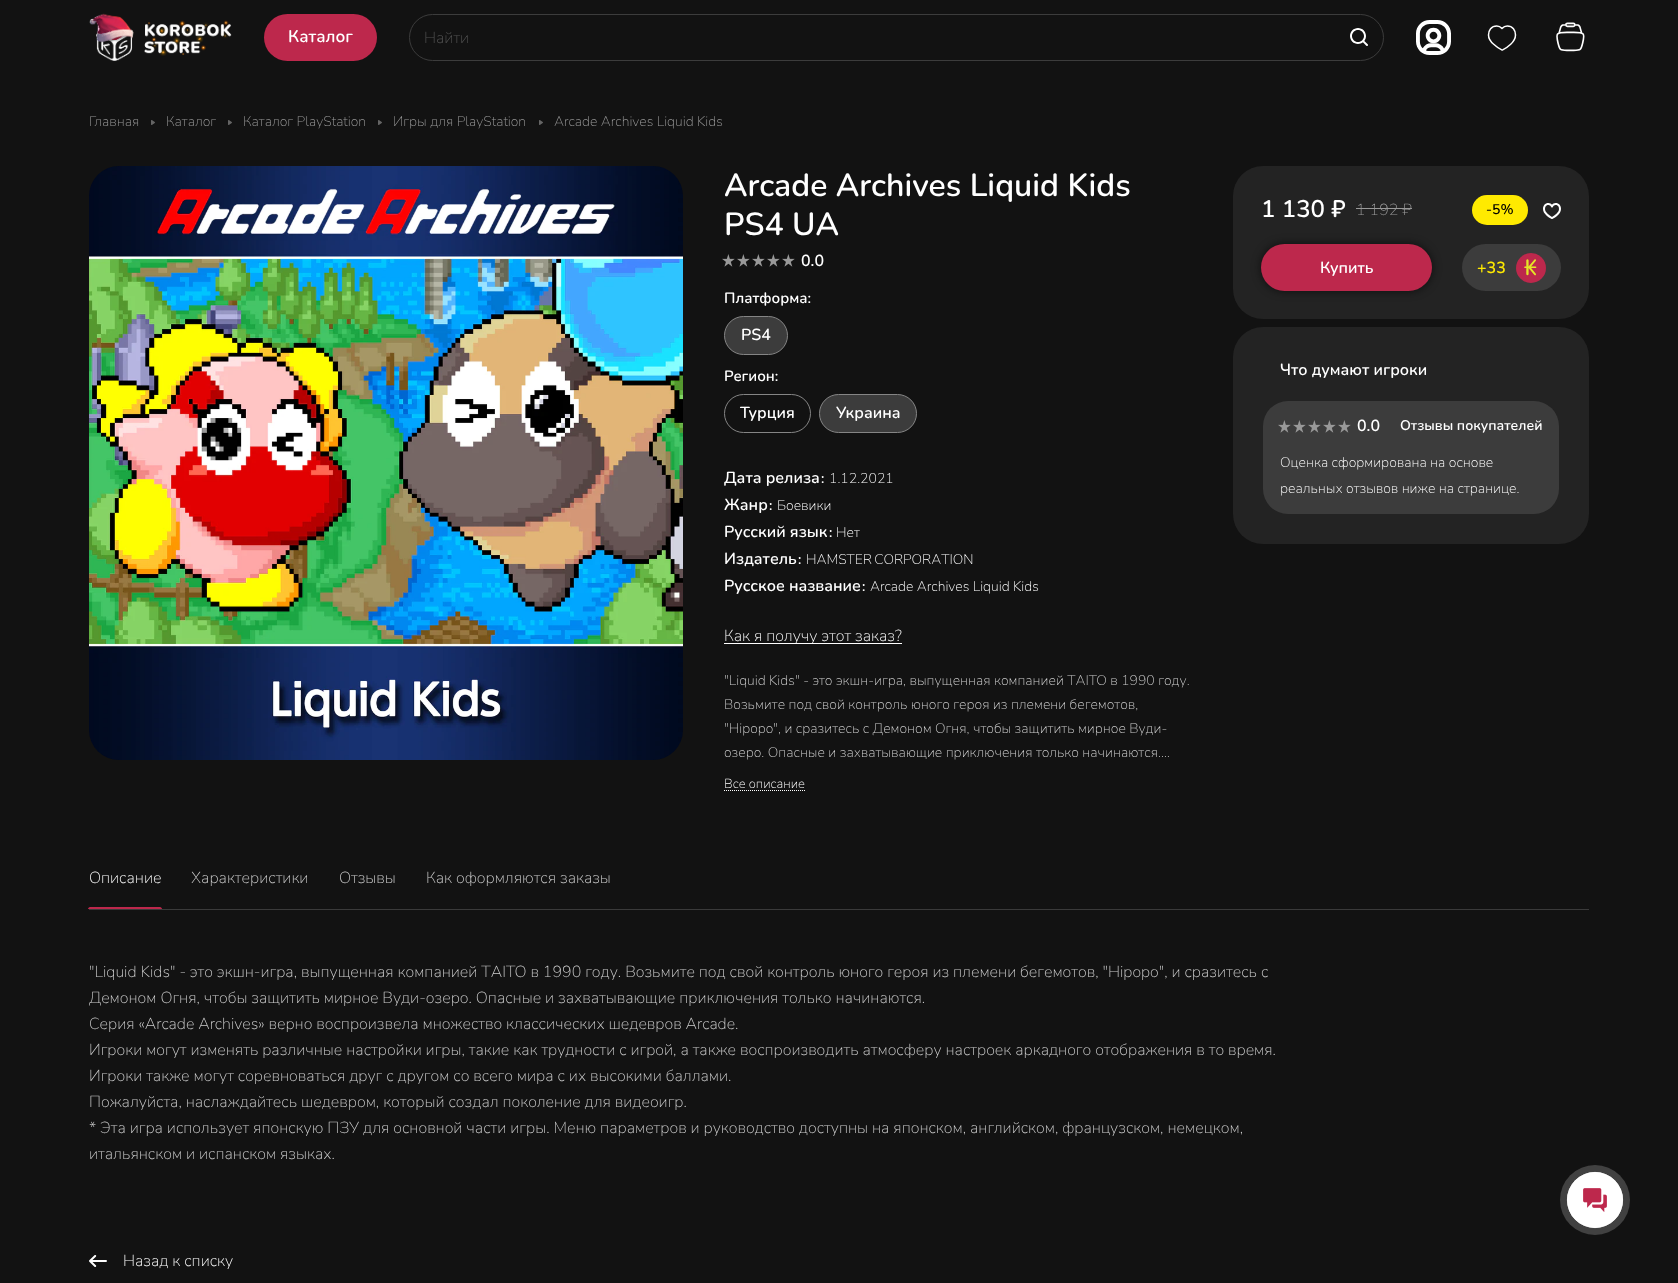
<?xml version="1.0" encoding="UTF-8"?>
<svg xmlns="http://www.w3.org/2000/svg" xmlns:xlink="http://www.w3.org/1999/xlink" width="1678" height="1283">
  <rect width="100%" height="100%" fill="#121212" />
  <image x="89" y="13" width="143" height="48" xlink:href="image1.png" />
  <rect x="264" y="14" width="113" height="47" rx="23.5" fill="#bd284c" />
  <rect x="409.5" y="14.5" width="974" height="46" rx="23" fill="none" stroke="#3c3c3c" />
  <image x="1350" y="28" width="18" height="18" xlink:href="image2.png" />
  <image x="1416" y="20" width="35" height="35" xlink:href="image3.png" />
  <image x="1487" y="25" width="30" height="26" xlink:href="image4.png" />
  <image x="1556" y="22" width="29" height="30" xlink:href="image5.png" />
  <image x="151" y="120" width="4" height="5" xlink:href="image6.png" />
  <image x="228" y="120" width="4" height="5" xlink:href="image6.png" />
  <image x="378" y="120" width="4" height="5" xlink:href="image6.png" />
  <image x="539" y="120" width="4" height="5" xlink:href="image6.png" />
  <image x="89" y="166" width="594" height="594" xlink:href="image7.png" />
  <image x="722" y="254" width="13" height="13" xlink:href="image8.png" />
  <image x="737" y="254" width="13" height="13" xlink:href="image8.png" />
  <image x="752" y="254" width="13" height="13" xlink:href="image8.png" />
  <image x="767" y="254" width="13" height="13" xlink:href="image8.png" />
  <image x="782" y="254" width="13" height="13" xlink:href="image8.png" />
  <rect x="724.5" y="316.5" width="63" height="38" rx="19" fill="#3c3c3c" stroke="#858585" />
  <rect x="724.5" y="394.5" width="86" height="38" rx="19" fill="none" stroke="#858585" />
  <rect x="819.5" y="394.5" width="97" height="38" rx="19" fill="#3c3c3c" stroke="#858585" />
  <rect x="724" y="643" width="178" height="1" fill="#ffffff" />
  <path d="M 724 790.5 h 81" fill="none" stroke="#ffffff" stroke-dasharray="1 1" />
  <rect x="1233" y="166" width="356" height="153" rx="30" fill="#232323" />
  <rect x="1356" y="208" width="56" height="1" fill="#999999" />
  <rect x="1472" y="195" width="56" height="30" rx="15" fill="#ffea00" />
  <image x="1543" y="203" width="18" height="16" xlink:href="image9.png" />
  <rect x="1261" y="244" width="171" height="47" rx="23.5" fill="#000000" fill-opacity="0.6" filter="blur(5px)" />
  <rect x="1261" y="244" width="171" height="47" rx="23.5" fill="#bd284c" />
  <rect x="1462" y="244" width="99" height="47" rx="23.5" fill="#3c3c3c" />
  <circle cx="1531" cy="268" r="15" fill="#bd284c" />
  <rect x="1233" y="327" width="356" height="217" rx="30" fill="#232323" />
  <rect x="1263" y="401" width="296" height="113" rx="25" fill="#3c3c3c" />
  <image x="1278" y="420" width="13" height="13" xlink:href="image10.png" />
  <image x="1293" y="420" width="13" height="13" xlink:href="image10.png" />
  <image x="1308" y="420" width="13" height="13" xlink:href="image10.png" />
  <image x="1323" y="420" width="13" height="13" xlink:href="image10.png" />
  <image x="1338" y="420" width="13" height="13" xlink:href="image10.png" />
  <rect x="89" y="909" width="1500" height="1" fill="#3a3a3a" />
  <path d="M 90 907 h 70 c 1 0 2 1 2 2 h -74 c 0 -1 1 -2 2 -2 z" fill="#bd284c" />
  <image x="89" y="1255" width="18" height="12" xlink:href="image11.png" />
  <circle cx="1595" cy="1200" r="35" fill="#414141" />
  <circle cx="1595" cy="1200" r="27.6" fill="none" stroke="#ffffff" stroke-width="0.8" />
  <circle cx="1595" cy="1200" r="28" fill="#ffffff" />
  <image x="1583" y="1188" width="24" height="24" xlink:href="image12.png" />
  <text x="288" y="42" style="font-family: Nunito; font-size: 17px; font-weight: 600; fill: #ffffff">Каталог</text>
  <text x="424" y="43" style="font-family: Nunito; font-size: 16px; font-weight: 200; fill: #535353">Найти</text>
  <text x="89" y="126" style="font-family: Nunito; font-size: 14px; font-weight: 200; fill: #999999">Главная</text>
  <text x="166" y="126" style="font-family: Nunito; font-size: 14px; font-weight: 200; fill: #999999">Каталог</text>
  <text x="243" y="126" style="font-family: Nunito; font-size: 14px; font-weight: 200; fill: #999999">Каталог PlayStation</text>
  <text x="393" y="126" style="font-family: Nunito; font-size: 14px; font-weight: 200; fill: #999999">Игры для PlayStation</text>
  <text x="554" y="126" style="font-family: Nunito; font-size: 14px; font-weight: 200; fill: #999999">Arcade Archives Liquid Kids</text>
  <text x="724" y="196" style="font-family: Nunito; font-size: 32px; font-weight: 600; fill: #ffffff">Arcade Archives Liquid Kids</text>
  <text x="724" y="235" style="font-family: Nunito; font-size: 32px; font-weight: 600; fill: #ffffff">PS4 UA</text>
  <text x="801" y="266" style="font-family: Nunito; font-size: 16px; font-weight: 600; fill: #ffffff">0.0</text>
  <text x="724" y="303" style="font-family: Nunito; font-size: 15px; font-weight: 600; fill: #ffffff">Платформа:</text>
  <text x="741" y="340" style="font-family: Nunito; font-size: 16px; font-weight: 600; fill: #ffffff">PS4</text>
  <text x="724" y="381" style="font-family: Nunito; font-size: 15px; font-weight: 600; fill: #ffffff">Регион:</text>
  <text x="740" y="418" style="font-family: Nunito; font-size: 16px; font-weight: 600; fill: #ffffff">Турция</text>
  <text x="836" y="418" style="font-family: Nunito; font-size: 16px; font-weight: 600; fill: #ffffff">Украина</text>
  <text x="724" y="483" style="font-family: Nunito; font-size: 16px; font-weight: 600; fill: #ffffff">Дата релиза</text>
  <text x="821" y="483" style="font-family: Nunito; font-size: 14px; font-weight: 600; fill: #ffffff">:</text>
  <text x="829" y="483" style="font-family: Nunito; font-size: 14px; font-weight: 200; fill: #ffffff">1.12.2021</text>
  <text x="724" y="510" style="font-family: Nunito; font-size: 16px; font-weight: 600; fill: #ffffff">Жанр</text>
  <text x="769" y="510" style="font-family: Nunito; font-size: 14px; font-weight: 600; fill: #ffffff">:</text>
  <text x="777" y="510" style="font-family: Nunito; font-size: 14px; font-weight: 200; fill: #ffffff">Боевики</text>
  <text x="724" y="537" style="font-family: Nunito; font-size: 16px; font-weight: 600; fill: #ffffff">Русский язык</text>
  <text x="829" y="537" style="font-family: Nunito; font-size: 14px; font-weight: 600; fill: #ffffff">:</text>
  <text x="836" y="537" style="font-family: Nunito; font-size: 14px; font-weight: 200; fill: #ffffff">Нет</text>
  <text x="724" y="564" style="font-family: Nunito; font-size: 16px; font-weight: 600; fill: #ffffff">Издатель</text>
  <text x="798" y="564" style="font-family: Nunito; font-size: 14px; font-weight: 600; fill: #ffffff">:</text>
  <text x="806" y="564" word-spacing="-1" style="font-family: Nunito; font-size: 14px; font-weight: 200; fill: #ffffff">HAMSTER CORPORATION</text>
  <text x="724" y="591" style="font-family: Nunito; font-size: 16px; font-weight: 600; fill: #ffffff">Русское название</text>
  <text x="862" y="591" style="font-family: Nunito; font-size: 14px; font-weight: 600; fill: #ffffff">:</text>
  <text x="870" y="591" style="font-family: Nunito; font-size: 14px; font-weight: 200; fill: #ffffff">Arcade Archives Liquid Kids</text>
  <text x="724" y="641" style="font-family: Nunito; font-size: 16px; font-weight: 200; fill: #ffffff">Как я получу этот заказ?</text>
  <text x="724" y="685" style="font-family: Nunito; font-size: 14px; font-weight: 200; fill: #cccccc">"Liquid Kids" - это экшн-игра, выпущенная компанией TAITO в 1990 году.</text>
  <text x="724" y="709" style="font-family: Nunito; font-size: 14px; font-weight: 200; fill: #cccccc">Возьмите под свой контроль юного героя из племени бегемотов,</text>
  <text x="724" y="733" style="font-family: Nunito; font-size: 14px; font-weight: 200; fill: #cccccc">"Hipopo", и сразитесь с Демоном Огня, чтобы защитить мирное Вуди-</text>
  <text x="724" y="757" style="font-family: Nunito; font-size: 14px; font-weight: 200; fill: #cccccc">озеро. Опасные и захватывающие приключения только начинаются.…</text>
  <text x="724" y="788" style="font-family: Nunito; font-size: 13px; font-weight: 200; fill: #ffffff">Все описание</text>
  <text x="1261" y="217" style="font-family: Nunito; font-size: 24px; font-weight: 600; fill: #ffffff">1 130 ₽</text>
  <text x="1356" y="215" style="font-family: Nunito; font-size: 16px; font-weight: 200; fill: #999999">1 192 ₽</text>
  <text x="1486" y="214" style="font-family: Nunito; font-size: 14px; font-weight: 600; fill: #000000">-5%</text>
  <text x="1320" y="273" style="font-family: Nunito; font-size: 16px; font-weight: 600; fill: #ffffff">Купить</text>
  <text x="1477" y="273" style="font-family: Nunito; font-size: 16px; font-weight: 600; fill: #ffea00">+33</text>
  <text x="1524" y="275" style="font-family: Nunito; font-size: 22px; font-weight: 600; fill: #e4e627">₭</text>
  <text x="1280" y="375" style="font-family: Nunito; font-size: 16px; font-weight: 600; fill: #ffffff">Что думают игроки</text>
  <text x="1357" y="431" style="font-family: Nunito; font-size: 16px; font-weight: 600; fill: #ffffff">0.0</text>
  <text x="1400" y="430" style="font-family: Nunito; font-size: 14px; font-weight: 600; fill: #ffffff">Отзывы покупателей</text>
  <text x="1280" y="467" style="font-family: Nunito; font-size: 14px; font-weight: 200; fill: #ffffff">Оценка сформирована на основе</text>
  <text x="1280" y="493" style="font-family: Nunito; font-size: 14px; font-weight: 200; fill: #ffffff">реальных отзывов ниже на странице.</text>
  <text x="89" y="883" style="font-family: Nunito; font-size: 16px; font-weight: 200; fill: #ffffff">Описание</text>
  <text x="191" y="883" style="font-family: Nunito; font-size: 16px; font-weight: 200; fill: #cccccc">Характеристики</text>
  <text x="339" y="883" style="font-family: Nunito; font-size: 16px; font-weight: 200; fill: #cccccc">Отзывы</text>
  <text x="426" y="883" style="font-family: Nunito; font-size: 16px; font-weight: 200; fill: #cccccc">Как оформляются заказы</text>
  <text x="89" y="977" style="font-family: Nunito; font-size: 16px; font-weight: 200; fill: #cccccc">"Liquid Kids" - это экшн-игра, выпущенная компанией TAITO в 1990 году. Возьмите под свой контроль юного героя из племени бегемотов, "Hipopo", и сразитесь с</text>
  <text x="89" y="1003" style="font-family: Nunito; font-size: 16px; font-weight: 200; fill: #cccccc">Демоном Огня, чтобы защитить мирное Вуди-озеро. Опасные и захватывающие приключения только начинаются.</text>
  <text x="89" y="1029" style="font-family: Nunito; font-size: 16px; font-weight: 200; fill: #cccccc">Серия «Arcade Archives» верно воспроизвела множество классических шедевров Arcade.</text>
  <text x="89" y="1055" style="font-family: Nunito; font-size: 16px; font-weight: 200; fill: #cccccc">Игроки могут изменять различные настройки игры, такие как трудности с игрой, а также воспроизводить атмосферу настроек аркадного отображения в то время.</text>
  <text x="89" y="1081" style="font-family: Nunito; font-size: 16px; font-weight: 200; fill: #cccccc">Игроки также могут соревноваться друг с другом со всего мира с их высокими баллами.</text>
  <text x="89" y="1107" style="font-family: Nunito; font-size: 16px; font-weight: 200; fill: #cccccc">Пожалуйста, наслаждайтесь шедевром, который создал поколение для видеоигр.</text>
  <text x="89" y="1133" style="font-family: Nunito; font-size: 16px; font-weight: 200; fill: #cccccc">* Эта игра использует японскую ПЗУ для основной части игры. Меню параметров и руководство доступны на японском, английском, французском, немецком,</text>
  <text x="89" y="1159" style="font-family: Nunito; font-size: 16px; font-weight: 200; fill: #cccccc">итальянском и испанском языках.</text>
  <text x="123" y="1266" style="font-family: Nunito; font-size: 16px; font-weight: 200; fill: #ffffff">Назад к списку</text>
</svg>
